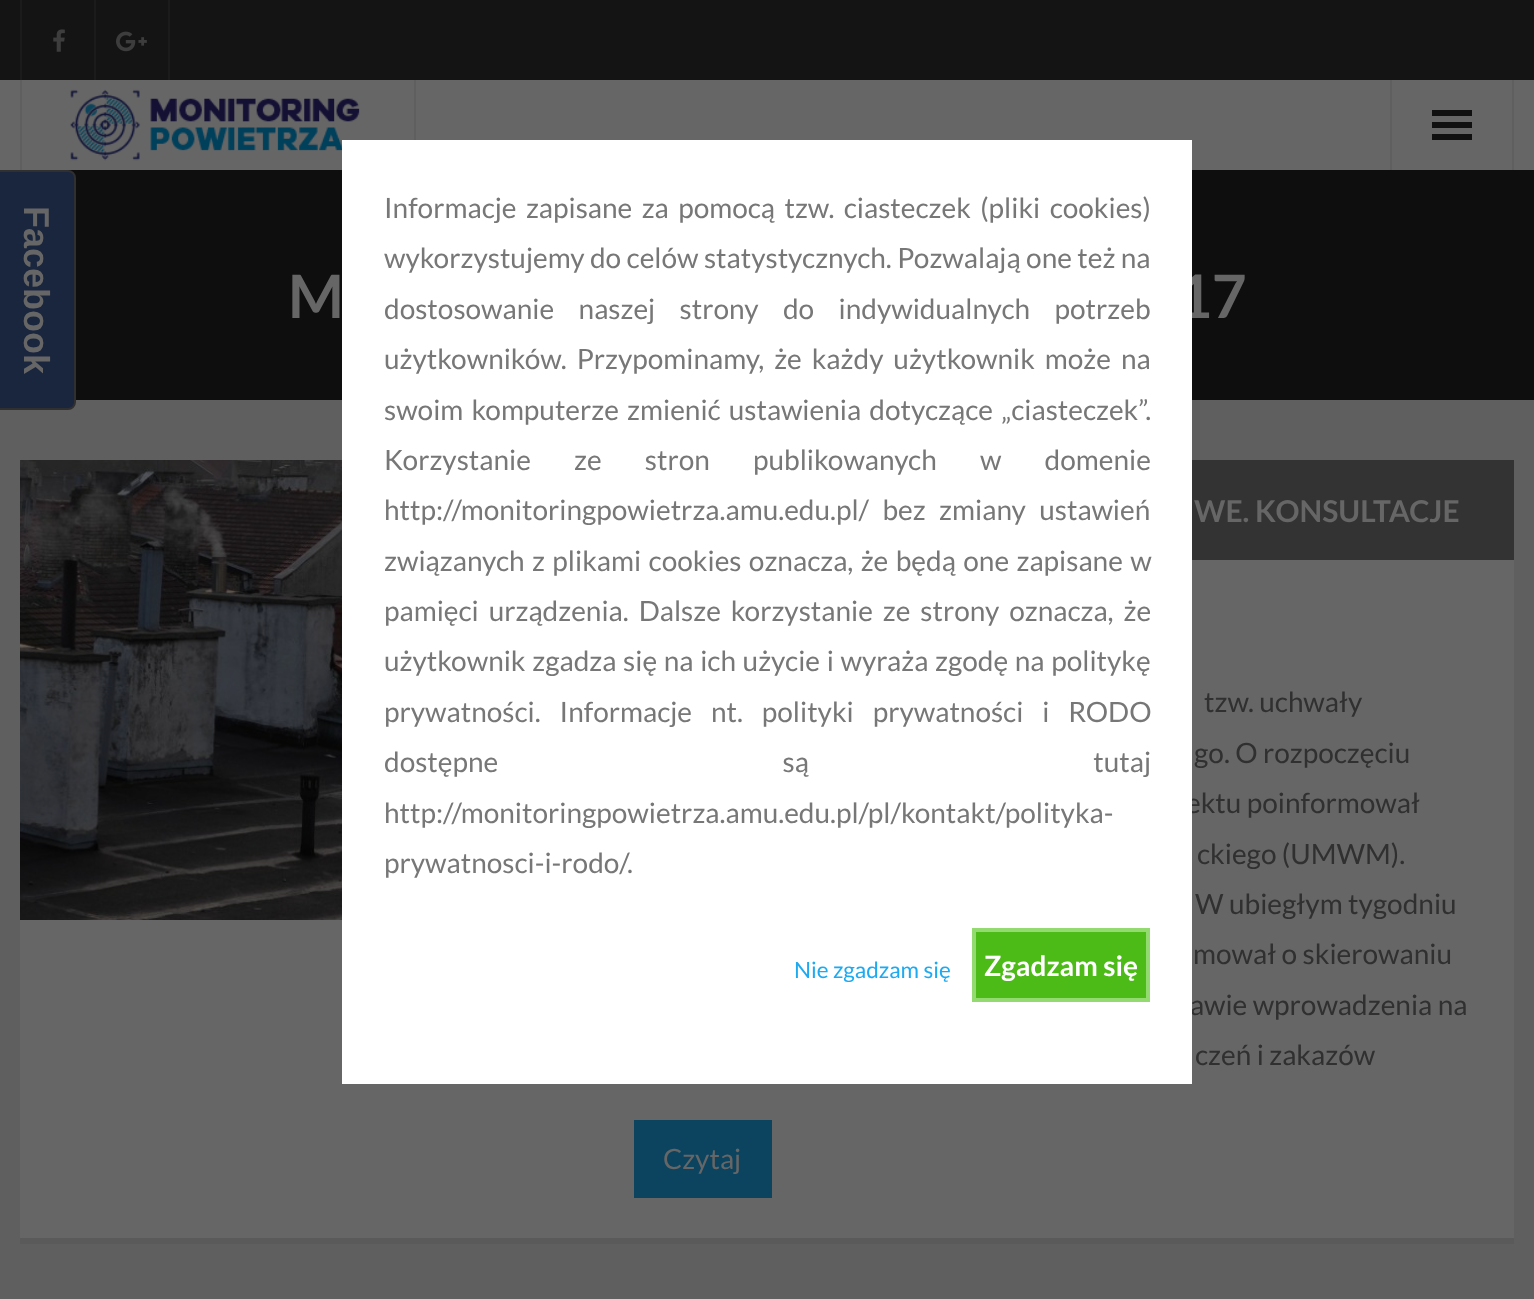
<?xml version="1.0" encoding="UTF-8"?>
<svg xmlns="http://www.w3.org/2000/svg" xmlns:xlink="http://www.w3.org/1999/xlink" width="1534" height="1299">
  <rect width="100%" height="100%" fill="#5f5f5f" />
  <rect x="68" y="170" width="1466" height="230" fill="#0e0e0e" />
  <path d="M -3 171 h 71 c 4 0 7 3 7 7 v 224 c 0 4 -3 7 -7 7 h -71 z" fill="#1a253e" stroke="#303030" stroke-width="2" />
  <rect width="1534" height="80" fill="#141414" />
  <rect x="20" width="2" height="80" fill="#1b1b1b" />
  <image x="53" y="29" width="12" height="23" xlink:href="image1.png" />
  <rect x="168" width="2" height="80" fill="#1b1b1b" />
  <rect x="94" width="2" height="80" fill="#1b1b1b" />
  <image x="116" y="31" width="31" height="21" xlink:href="image2.png" />
  <rect y="80" width="1534" height="90" fill="#666666" />
  <rect x="414" y="80" width="2" height="60" fill="#5f5f5f" />
  <rect x="20" y="80" width="2" height="90" fill="#5f5f5f" />
  <image x="70" y="89" width="290" height="72" xlink:href="image3.png" />
  <rect x="1512" y="80" width="2" height="90" fill="#5f5f5f" />
  <rect x="1390" y="80" width="2" height="90" fill="#5f5f5f" />
  <rect x="1432" y="110" width="40" height="6" fill="#101010" />
  <rect x="1432" y="122" width="40" height="6" fill="#101010" />
  <rect x="1432" y="134" width="40" height="6" fill="#101010" />
  <rect x="20" y="560" width="1494" height="678" fill="#666666" />
  <rect x="20" y="1238" width="1494" height="6" fill="#5a5a5a" />
  <image x="20" y="460" width="322" height="460" xlink:href="image4.png" />
  <rect x="1192" y="460" width="322" height="100" fill="#333333" />
  <rect x="634" y="1120" width="138" height="78" fill="#0c4460" />
  <text x="24" y="206" transform="rotate(90 24 206)" style="font-family: Liberation Sans; font-size: 36px; font-weight: bold; fill: #666666">Facebook</text>
  <text x="288" y="318" style="font-family: Lato; font-size: 60px; font-weight: bold; fill: #666666">M</text>
  <text x="1177" y="318" style="font-family: Lato; font-size: 60px; font-weight: bold; fill: #666666">17</text>
  <text x="1194" y="522" style="font-family: Lato; font-size: 30px; font-weight: bold; fill: #666666">WE. KONSULTACJE</text>
  <text x="1204" y="712" style="font-family: Lato; font-size: 28px; fill: #303030">tzw. uchwały</text>
  <text x="1194" y="763" style="font-family: Lato; font-size: 28px; fill: #303030">go. O rozpoczęciu</text>
  <text x="1186" y="813" style="font-family: Lato; font-size: 28px; fill: #303030">ektu poinformował</text>
  <text x="1197" y="864" style="font-family: Lato; font-size: 28px; fill: #303030">ckiego (UMWM).</text>
  <text x="1195" y="914" style="font-family: Lato; font-size: 28px; fill: #303030">W ubiegłym tygodniu</text>
  <text x="1193" y="964" style="font-family: Lato; font-size: 28px; fill: #303030">mował o skierowaniu</text>
  <text x="1190" y="1015" style="font-family: Lato; font-size: 28px; fill: #303030">awie wprowadzenia na</text>
  <rect x="342" y="140" width="850" height="944" fill="#ffffff" />
  <text x="794" y="978" style="font-family: Lato; font-size: 22.5px; fill: #1eaaf1">Nie zgadzam się</text>
  <rect x="974" y="930" width="174" height="70" fill="#4cbb17" stroke="#93db70" stroke-width="4" />
  <text x="984" y="976" style="font-family: Lato; font-size: 28px; font-weight: bold; fill: #ffffff">Zgadzam się</text>
  <text x="384" y="873" style="font-family: Lato; font-size: 28px; fill: #777777">prywatnosci-i-rodo/.</text>
  <text x="384" y="823" style="font-family: Lato; font-size: 28px; fill: #777777">http://monitoringpowietrza.amu.edu.pl/pl/kontakt/polityka-</text>
  <text x="384" y="772" word-spacing="279" style="font-family: Lato; font-size: 28px; fill: #777777">dostępne są tutaj</text>
  <text x="384" y="722" word-spacing="13.5" style="font-family: Lato; font-size: 28px; fill: #777777">prywatności. Informacje nt. polityki prywatności i RODO</text>
  <text x="384" y="671" word-spacing="1.25" style="font-family: Lato; font-size: 28px; fill: #777777">użytkownik zgadza się na ich użycie i wyraża zgodę na politykę</text>
  <text x="384" y="621" word-spacing="4.5" style="font-family: Lato; font-size: 28px; fill: #777777">pamięci urządzenia. Dalsze korzystanie ze strony oznacza, że</text>
  <text x="384" y="571" word-spacing="2" style="font-family: Lato; font-size: 28px; fill: #777777">związanych z plikami cookies oznacza, że będą one zapisane w</text>
  <text x="384" y="520" word-spacing="8" style="font-family: Lato; font-size: 28px; fill: #777777">http://monitoringpowietrza.amu.edu.pl/ bez zmiany ustawień</text>
  <text x="384" y="470" word-spacing="37.75" style="font-family: Lato; font-size: 28px; fill: #777777">Korzystanie ze stron publikowanych w domenie</text>
  <text x="384" y="420" word-spacing="2.75" style="font-family: Lato; font-size: 28px; fill: #777777">swoim komputerze zmienić ustawienia dotyczące „ciasteczek”.</text>
  <text x="384" y="369" word-spacing="4.5" style="font-family: Lato; font-size: 28px; fill: #777777">użytkowników. Przypominamy, że każdy użytkownik może na</text>
  <text x="384" y="319" word-spacing="19" style="font-family: Lato; font-size: 28px; fill: #777777">dostosowanie naszej strony do indywidualnych potrzeb</text>
  <text x="384" y="268" style="font-family: Lato; font-size: 28px; fill: #777777">wykorzystujemy do celów statystycznych. Pozwalają one też na</text>
  <text x="384" y="218" word-spacing="4" style="font-family: Lato; font-size: 28px; fill: #777777">Informacje zapisane za pomocą tzw. ciasteczek (pliki cookies)</text>
  <text x="1195" y="1065" style="font-family: Lato; font-size: 28px; fill: #303030">czeń i zakazów</text>
  <text x="663" y="1169" style="font-family: Lato; font-size: 28px; fill: #666666">Czytaj</text>
</svg>
